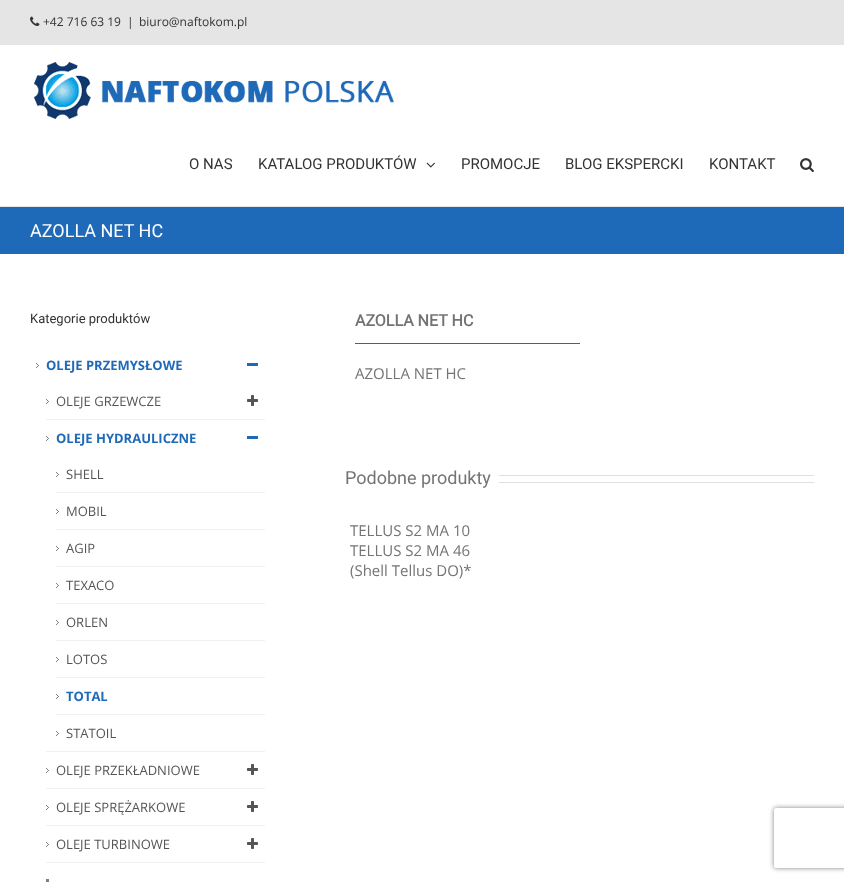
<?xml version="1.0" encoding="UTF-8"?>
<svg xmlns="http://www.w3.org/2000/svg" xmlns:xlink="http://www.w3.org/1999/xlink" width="844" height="882">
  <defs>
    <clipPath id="clip1"><path d="M 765 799 h 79 v 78 h -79 z m 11 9 h 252 c 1 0 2 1 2 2 v 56 c 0 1 -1 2 -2 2 h -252 c -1 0 -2 -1 -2 -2 v -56 c 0 -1 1 -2 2 -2 z" clip-rule="evenodd" /></clipPath>
  </defs>
  <rect width="100%" height="100%" fill="#ffffff" />
  <rect width="844" height="45" fill="#e5e5e5" />
  <image x="30" y="16" width="10" height="10" xlink:href="image1.png" />
  <rect y="206" width="844" height="1" fill="#e5e5e5" />
  <image x="34" y="62" width="360" height="57" xlink:href="image2.png" />
  <image x="426" y="162" width="9" height="6" xlink:href="image3.png" />
  <image x="800" y="158" width="14" height="15" xlink:href="image4.png" />
  <rect y="207" width="844" height="47" fill="#1e6ab8" />
  <image x="36" y="363" width="3" height="5" xlink:href="image5.png" />
  <rect x="247" y="363" width="11" height="3" fill="#1e6ab8" />
  <image x="46" y="399" width="3" height="5" xlink:href="image5.png" />
  <rect x="46" y="419" width="219" height="1" fill="#f0f0f0" />
  <image x="247" y="395" width="11" height="11" xlink:href="image6.png" />
  <image x="46" y="436" width="3" height="5" xlink:href="image5.png" />
  <rect x="46" y="751" width="219" height="1" fill="#f0f0f0" />
  <rect x="247" y="436" width="11" height="3" fill="#1e6ab8" />
  <image x="56" y="472" width="3" height="5" xlink:href="image5.png" />
  <rect x="56" y="492" width="209" height="1" fill="#f0f0f0" />
  <image x="56" y="509" width="3" height="5" xlink:href="image5.png" />
  <rect x="56" y="529" width="209" height="1" fill="#f0f0f0" />
  <image x="56" y="546" width="3" height="5" xlink:href="image5.png" />
  <rect x="56" y="566" width="209" height="1" fill="#f0f0f0" />
  <image x="56" y="583" width="3" height="5" xlink:href="image5.png" />
  <rect x="56" y="603" width="209" height="1" fill="#f0f0f0" />
  <image x="56" y="620" width="3" height="5" xlink:href="image5.png" />
  <rect x="56" y="640" width="209" height="1" fill="#f0f0f0" />
  <image x="56" y="657" width="3" height="5" xlink:href="image5.png" />
  <rect x="56" y="677" width="209" height="1" fill="#f0f0f0" />
  <image x="56" y="694" width="3" height="5" xlink:href="image5.png" />
  <rect x="56" y="714" width="209" height="1" fill="#f0f0f0" />
  <image x="56" y="731" width="3" height="5" xlink:href="image5.png" />
  <image x="46" y="768" width="3" height="5" xlink:href="image5.png" />
  <rect x="46" y="788" width="219" height="1" fill="#f0f0f0" />
  <image x="247" y="764" width="11" height="11" xlink:href="image6.png" />
  <image x="46" y="805" width="3" height="5" xlink:href="image5.png" />
  <rect x="46" y="825" width="219" height="1" fill="#f0f0f0" />
  <image x="247" y="801" width="11" height="11" xlink:href="image6.png" />
  <image x="46" y="842" width="3" height="5" xlink:href="image5.png" />
  <rect x="46" y="862" width="219" height="1" fill="#f0f0f0" />
  <image x="247" y="838" width="11" height="11" xlink:href="image6.png" />
  <rect x="46" y="879" width="3" height="3" fill="#7f7f7e" />
  <rect x="355" y="343" width="225" height="1" fill="#1e6ab8" />
  <rect x="499" y="475" width="315" height="1" fill="#e0dede" />
  <rect x="499" y="482" width="315" height="1" fill="#e0dede" />
  <g clip-path="url(#clip1)">
    <rect x="774" y="808" width="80" height="60" rx="2" fill="#808080" filter="blur(2.5px)" />
  </g>
  <text x="43" y="26" style="font-family: Open Sans; font-size: 12px; fill: #333333">+42 716 63 19</text>
  <text x="127" y="26" style="font-family: Open Sans; font-size: 12px; fill: #333333">|</text>
  <text x="139" y="26" style="font-family: Open Sans; font-size: 12px; fill: #333333">biuro@naftokom.pl</text>
  <text x="189" y="169" style="font-family: Roboto; font-size: 15px; fill: #333333">O NAS</text>
  <text x="258" y="169" style="font-family: Roboto; font-size: 15px; fill: #333333">KATALOG PRODUKTÓW</text>
  <text x="461" y="169" style="font-family: Roboto; font-size: 15px; fill: #333333">PROMOCJE</text>
  <text x="565" y="169" style="font-family: Roboto; font-size: 15px; fill: #333333">BLOG EKSPERCKI</text>
  <text x="709" y="169" style="font-family: Roboto; font-size: 15px; fill: #333333">KONTAKT</text>
  <text x="30" y="237" style="font-family: Roboto; font-size: 18px; fill: #ffffff">AZOLLA NET HC</text>
  <text x="30" y="323" style="font-family: Roboto; font-size: 13px; fill: #333333">Kategorie produktów</text>
  <text x="46" y="370" style="font-family: Open Sans; font-size: 13px; font-weight: bold; fill: #1e6ab8">OLEJE PRZEMYSŁOWE</text>
  <text x="56" y="406" style="font-family: Open Sans; font-size: 13px; fill: #555555">OLEJE GRZEWCZE</text>
  <text x="56" y="443" style="font-family: Open Sans; font-size: 13px; font-weight: bold; fill: #1e6ab8">OLEJE HYDRAULICZNE</text>
  <text x="66" y="479" style="font-family: Open Sans; font-size: 13px; fill: #555555">SHELL</text>
  <text x="66" y="516" style="font-family: Open Sans; font-size: 13px; fill: #555555">MOBIL</text>
  <text x="66" y="553" style="font-family: Open Sans; font-size: 13px; fill: #555555">AGIP</text>
  <text x="66" y="590" style="font-family: Open Sans; font-size: 13px; fill: #555555">TEXACO</text>
  <text x="66" y="627" style="font-family: Open Sans; font-size: 13px; fill: #555555">ORLEN</text>
  <text x="66" y="664" style="font-family: Open Sans; font-size: 13px; fill: #555555">LOTOS</text>
  <text x="66" y="701" style="font-family: Open Sans; font-size: 13px; font-weight: bold; fill: #1e6ab8">TOTAL</text>
  <text x="66" y="738" style="font-family: Open Sans; font-size: 13px; fill: #555555">STATOIL</text>
  <text x="56" y="775" style="font-family: Open Sans; font-size: 13px; fill: #555555">OLEJE PRZEKŁADNIOWE</text>
  <text x="56" y="812" style="font-family: Open Sans; font-size: 13px; fill: #555555">OLEJE SPRĘŻARKOWE</text>
  <text x="56" y="849" style="font-family: Open Sans; font-size: 13px; fill: #555555">OLEJE TURBINOWE</text>
  <text x="355" y="326" style="font-family: Roboto; font-size: 16px; font-weight: bold; fill: #747474">AZOLLA NET HC</text>
  <text x="355" y="379" style="font-family: Open Sans; font-size: 15px; fill: #747474">AZOLLA NET HC</text>
  <text x="345" y="484" style="font-family: Roboto; font-size: 18px; fill: #747474">Podobne produkty</text>
  <text x="350" y="536" style="font-family: Open Sans; font-size: 15px; fill: #747474">TELLUS S2 MA 10</text>
  <text x="350" y="556" style="font-family: Open Sans; font-size: 15px; fill: #747474">TELLUS S2 MA 46</text>
  <text x="350" y="576" style="font-family: Open Sans; font-size: 15px; fill: #747474">(Shell Tellus DO)*</text>
</svg>
